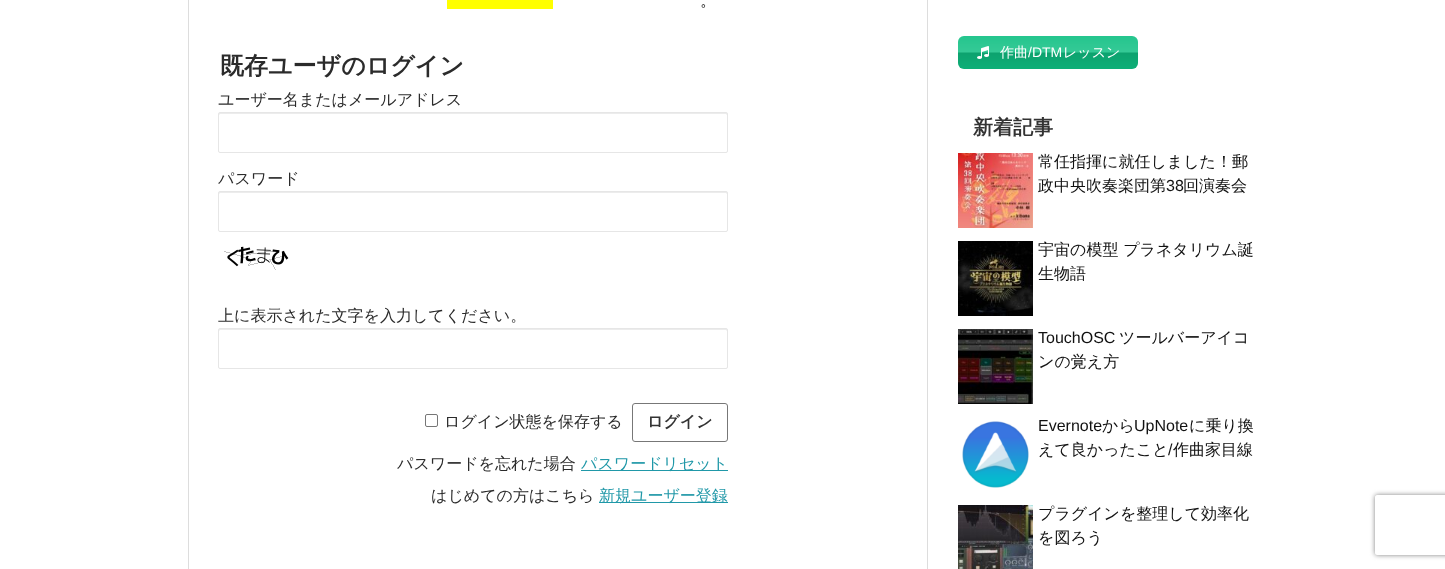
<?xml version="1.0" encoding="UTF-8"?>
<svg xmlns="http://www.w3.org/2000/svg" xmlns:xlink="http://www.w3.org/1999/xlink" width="1445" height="569">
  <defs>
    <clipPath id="clip1"><path d="M 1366 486 h 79 v 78 h -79 z m 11 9 h 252 c 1 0 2 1 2 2 v 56 c 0 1 -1 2 -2 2 h -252 c -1 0 -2 -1 -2 -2 v -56 c 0 -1 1 -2 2 -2 z" clip-rule="evenodd" /></clipPath>
  </defs>
  <rect width="100%" height="100%" fill="#ffffff" />
  <rect x="188.5" y="-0.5" width="739" height="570" fill="none" stroke="#dddddd" />
  <rect x="447" width="106" height="9" fill="#ffff00" />
  <path d="M 220 114 h 506 l 1 1 v -1 c 0 -1 0 -1 -1 -1 h -506 c -1 0 -1 0 -1 1 v 1 z" fill="#ececec" />
  <rect x="218.5" y="112.5" width="509" height="40" rx="1.5" fill="none" stroke="#e6e6e6" />
  <path d="M 220 193 h 506 l 1 1 v -1 c 0 -1 0 -1 -1 -1 h -506 c -1 0 -1 0 -1 1 v 1 z" fill="#ececec" />
  <rect x="218.5" y="191.5" width="509" height="40" rx="1.5" fill="none" stroke="#e6e6e6" />
  <image x="224" y="246" width="65" height="24" xlink:href="image1.png" />
  <path d="M 220 330 h 506 l 1 1 v -1 c 0 -1 0 -1 -1 -1 h -506 c -1 0 -1 0 -1 1 v 1 z" fill="#ececec" />
  <rect x="218.5" y="328.5" width="509" height="40" rx="1.5" fill="none" stroke="#e6e6e6" />
  <rect x="425.5" y="414.5" width="12" height="12" rx="1.5" fill="none" stroke="#767676" />
  <rect x="632.5" y="403.5" width="95" height="38" rx="2.5" fill="none" stroke="#777777" />
  <rect x="581" y="470" width="147" height="1" fill="#2098a8" />
  <rect x="599" y="502" width="129" height="1" fill="#2098a8" />
  <rect x="958" y="36" width="180" height="33" rx="6" fill="#10c083" />
  <image x="958" y="36" width="180" height="33" xlink:href="image2.png" />
  <image x="977" y="46" width="12" height="13" xlink:href="image3.png" />
  <image x="958" y="153" width="75" height="75" xlink:href="image4.png" />
  <image x="958" y="241" width="75" height="75" xlink:href="image5.png" />
  <image x="958" y="329" width="75" height="75" xlink:href="image6.png" />
  <image x="962" y="421" width="67" height="67" xlink:href="image7.png" />
  <image x="958" y="505" width="75" height="64" xlink:href="image8.png" />
  <g clip-path="url(#clip1)">
    <rect x="1375" y="495" width="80" height="60" rx="2" fill="#808080" filter="blur(2.5px)" />
  </g>
  <text x="700" y="6" style="font-family: WenQuanYi Zen Hei; font-size: 16px; font-weight: 500; fill: #000000">。</text>
  <text x="220" y="74" style="font-family: WenQuanYi Zen Hei; font-size: 24px; font-weight: bold; fill: #2b2b2b">既存ユーザのログイン</text>
  <text x="218" y="105" style="font-family: WenQuanYi Zen Hei; font-size: 16px; font-weight: 500; fill: #2b2b2b">ユーザー名またはメールアドレス</text>
  <text x="218" y="184" style="font-family: WenQuanYi Zen Hei; font-size: 16px; font-weight: 500; fill: #2b2b2b">パスワード</text>
  <text x="218" y="321" style="font-family: WenQuanYi Zen Hei; font-size: 16px; font-weight: 500; fill: #2b2b2b">上に表示された文字を入力してください。</text>
  <text x="444" y="427" style="font-family: WenQuanYi Zen Hei; font-size: 16px; font-weight: 500; fill: #2b2b2b">ログイン状態を保存する</text>
  <text x="647" y="427" style="font-family: WenQuanYi Zen Hei; font-size: 16px; font-weight: bold; fill: #333333">ログイン</text>
  <text x="397" y="469" style="font-family: WenQuanYi Zen Hei; font-size: 16px; font-weight: 500; fill: #2b2b2b">パスワードを忘れた場合</text>
  <text x="581" y="469" style="font-family: WenQuanYi Zen Hei; font-size: 16px; font-weight: 500; fill: #2098a8">パスワードリセット</text>
  <text x="431" y="501" style="font-family: WenQuanYi Zen Hei; font-size: 16px; font-weight: 500; fill: #2b2b2b">はじめての方はこちら</text>
  <text x="599" y="501" style="font-family: WenQuanYi Zen Hei; font-size: 16px; font-weight: 500; fill: #2098a8">新規ユーザー登録</text>
  <text x="1000" y="57" style="font-family: WenQuanYi Zen Hei; font-size: 14px; font-weight: 500; fill: #ffffff">作曲</text>
  <text x="1028" y="57" style="font-family: Liberation Sans; font-size: 14px; fill: #ffffff">/DTM</text>
  <text x="1063" y="57" style="font-family: WenQuanYi Zen Hei; font-size: 14px; font-weight: 500; fill: #ffffff">レッスン</text>
  <text x="973" y="134" style="font-family: WenQuanYi Zen Hei; font-size: 20px; font-weight: bold; fill: #333333">新着記事</text>
  <text x="1038" y="167" style="font-family: WenQuanYi Zen Hei; font-size: 16px; font-weight: 500; fill: #111111">常任指揮に就任しました！郵</text>
  <text x="1038" y="191" style="font-family: WenQuanYi Zen Hei; font-size: 16px; font-weight: 500; fill: #111111">政中央吹奏楽団第</text>
  <text x="1166" y="191" style="font-family: Liberation Sans; font-size: 16px; fill: #111111">38</text>
  <text x="1183" y="191" style="font-family: WenQuanYi Zen Hei; font-size: 16px; font-weight: 500; fill: #111111">回演奏会</text>
  <text x="1038" y="255" style="font-family: WenQuanYi Zen Hei; font-size: 16px; font-weight: 500; fill: #111111">宇宙の模型 プラネタリウム誕</text>
  <text x="1038" y="279" style="font-family: WenQuanYi Zen Hei; font-size: 16px; font-weight: 500; fill: #111111">生物語</text>
  <text x="1038" y="343" style="font-family: Liberation Sans; font-size: 16px; fill: #111111">TouchOSC</text>
  <text x="1119" y="343" style="font-family: WenQuanYi Zen Hei; font-size: 16px; font-weight: 500; fill: #111111">ツールバーアイコ</text>
  <text x="1038" y="367" style="font-family: WenQuanYi Zen Hei; font-size: 16px; font-weight: 500; fill: #111111">ンの覚え方</text>
  <text x="1038" y="431" style="font-family: Liberation Sans; font-size: 16px; fill: #111111">Evernote</text>
  <text x="1102" y="431" style="font-family: WenQuanYi Zen Hei; font-size: 16px; font-weight: 500; fill: #111111">から</text>
  <text x="1134" y="431" style="font-family: Liberation Sans; font-size: 16px; fill: #111111">UpNote</text>
  <text x="1189" y="431" style="font-family: WenQuanYi Zen Hei; font-size: 16px; font-weight: 500; fill: #111111">に乗り換</text>
  <text x="1038" y="455" style="font-family: WenQuanYi Zen Hei; font-size: 16px; font-weight: 500; fill: #111111">えて良かったこと</text>
  <text x="1168" y="455" style="font-family: Liberation Sans; font-size: 16px; fill: #111111">/</text>
  <text x="1173" y="455" style="font-family: WenQuanYi Zen Hei; font-size: 16px; font-weight: 500; fill: #111111">作曲家目線</text>
  <text x="1038" y="519" style="font-family: WenQuanYi Zen Hei; font-size: 16px; font-weight: 500; fill: #111111">プラグインを整理して効率化</text>
  <text x="1038" y="543" style="font-family: WenQuanYi Zen Hei; font-size: 16px; font-weight: 500; fill: #111111">を図ろう</text>
</svg>
